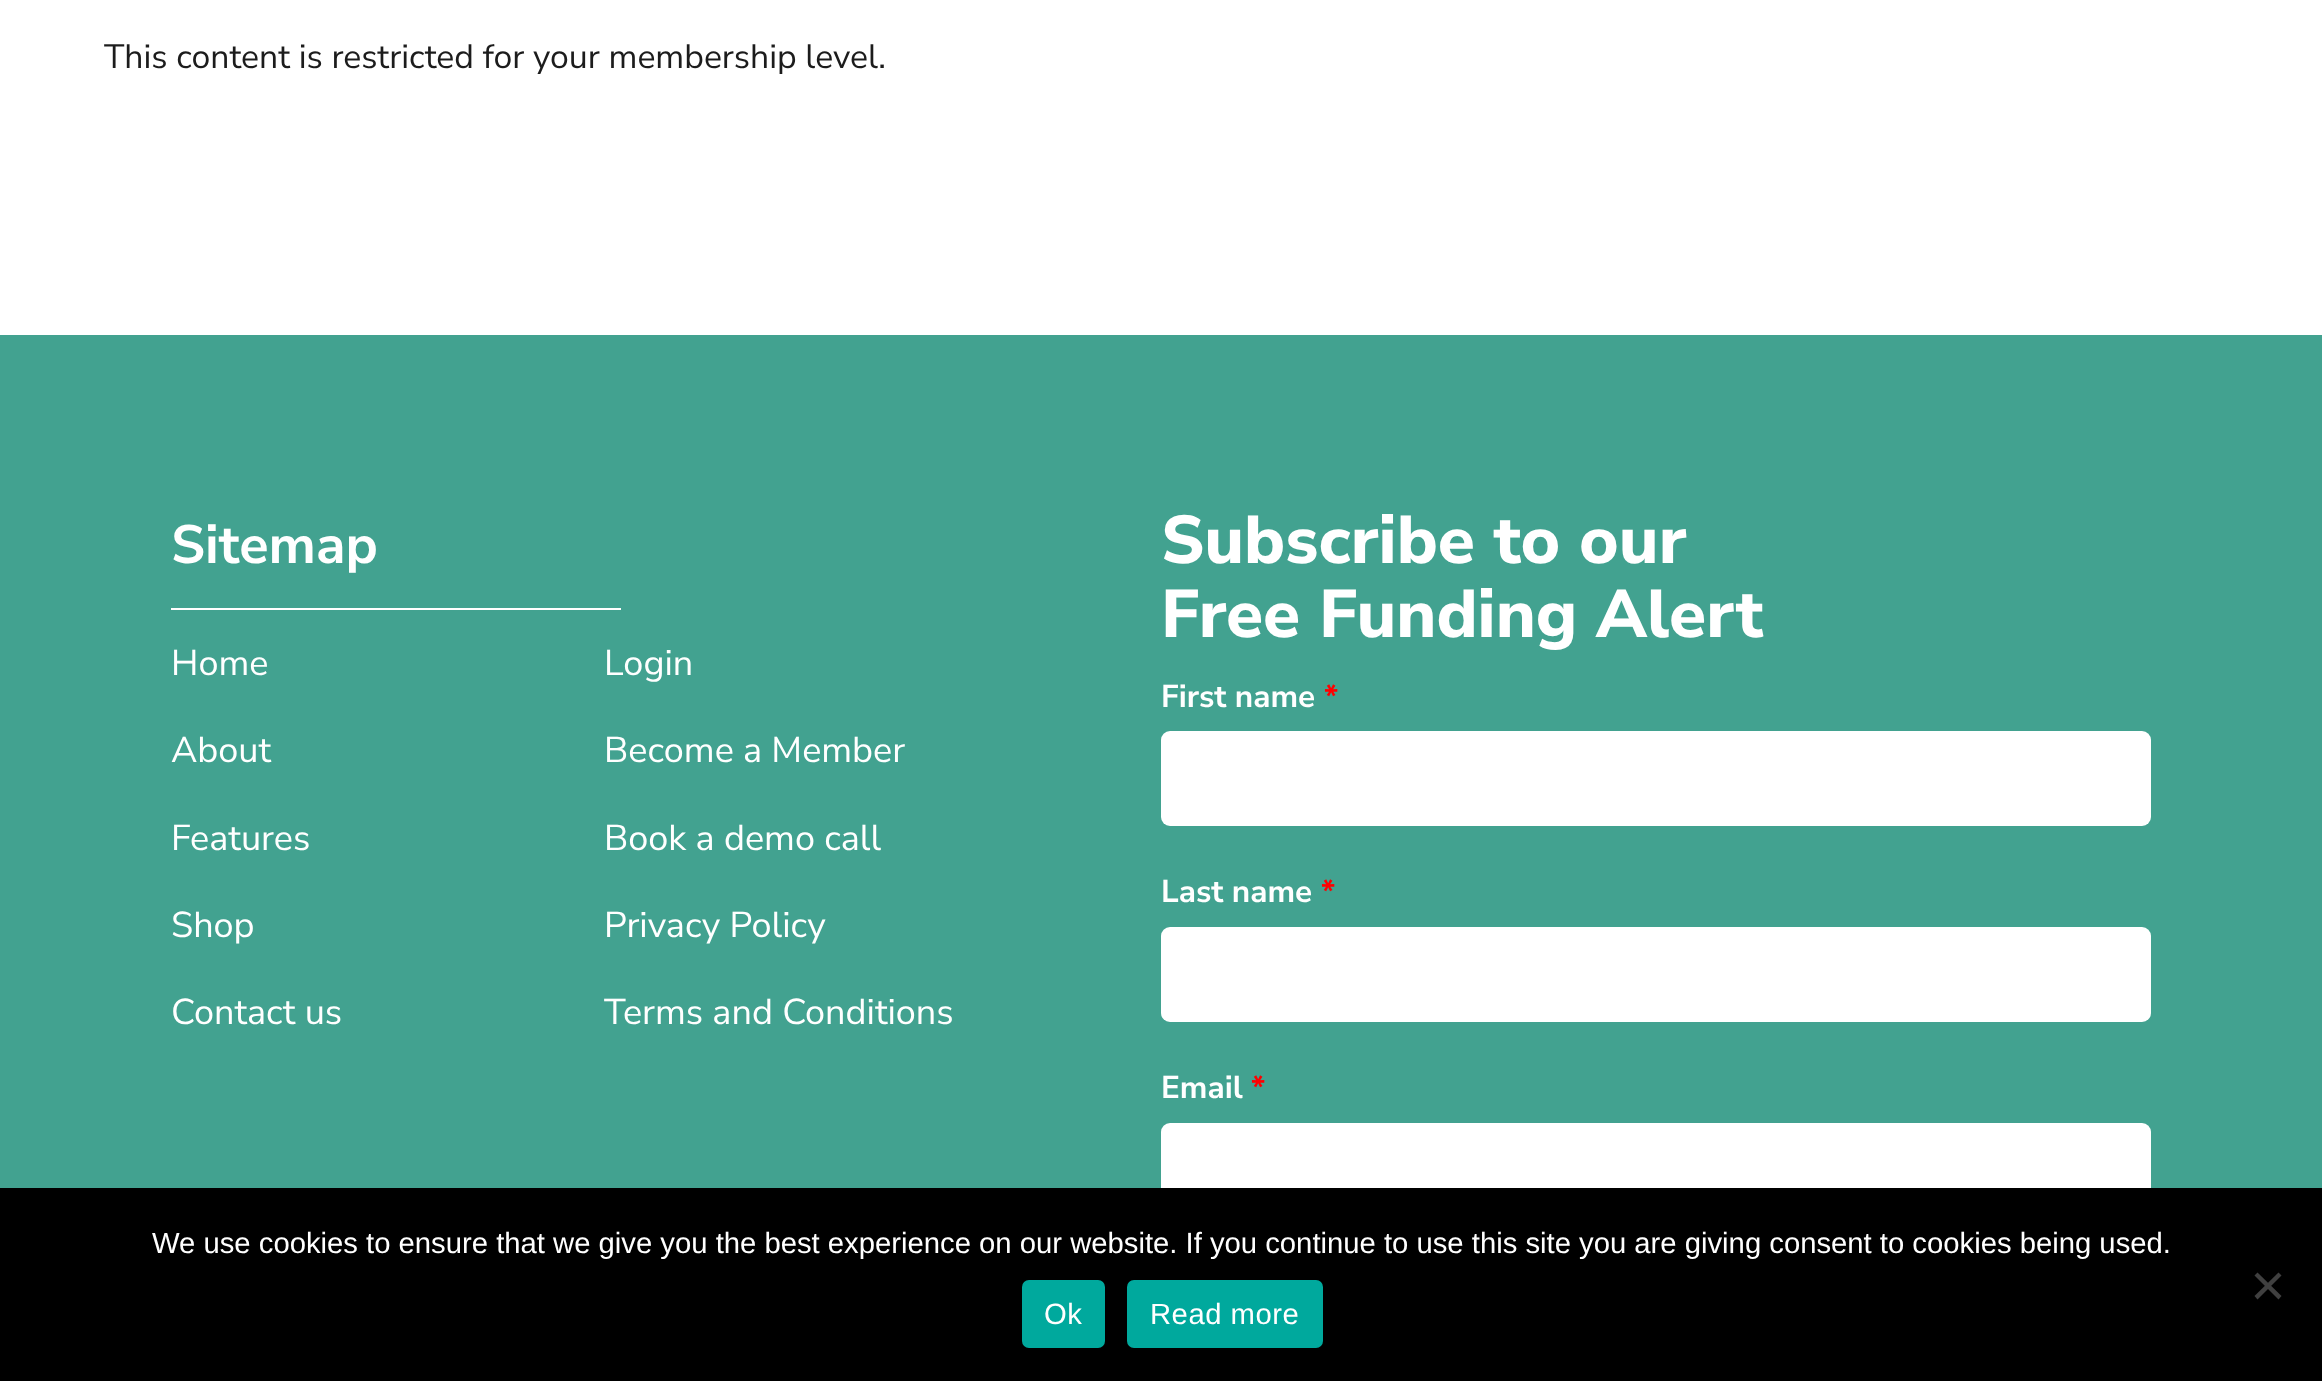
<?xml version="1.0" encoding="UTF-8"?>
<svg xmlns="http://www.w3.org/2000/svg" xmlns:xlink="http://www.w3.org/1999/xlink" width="2322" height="1381">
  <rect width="100%" height="100%" fill="#ffffff" />
  <rect y="335" width="2322" height="853" fill="#42a290" />
  <rect x="171" y="608" width="450" height="2" fill="#ffffff" />
  <rect x="1161" y="731" width="990" height="95" rx="9" fill="#ffffff" />
  <rect x="1161" y="927" width="990" height="95" rx="9" fill="#ffffff" />
  <rect x="1161" y="1123" width="990" height="94" rx="9" fill="#ffffff" />
  <rect y="1188" width="2322" height="193" fill="#000000" />
  <path d="M 2278.5 1272.5 l 3 3 l -24 24 l -3 -3.5 z" fill="#404040" />
  <path d="M 2254.5 1275.5 l 3 -3 l 24 23.5 l -3 3.5 z" fill="#404040" />
  <rect x="1022" y="1280" width="83" height="68" rx="7" fill="#00a99d" />
  <rect x="1127" y="1280" width="196" height="68" rx="7" fill="#00a99d" />
  <text x="104" y="68" style="font-family: Nunito Sans; font-size: 33.75px; fill: #1c1c1c">This content is restricted for your membership level.</text>
  <text x="171" y="563" style="font-family: Nunito Sans; font-size: 54px; font-weight: bold; fill: #ffffff">Sitemap</text>
  <text x="171" y="675" style="font-family: Nunito Sans; font-size: 36px; fill: #ffffff">Home</text>
  <text x="604" y="675" style="font-family: Nunito Sans; font-size: 36px; fill: #ffffff">Login</text>
  <text x="171" y="762" style="font-family: Nunito Sans; font-size: 36px; fill: #ffffff">About</text>
  <text x="604" y="762" style="font-family: Nunito Sans; font-size: 36px; fill: #ffffff">Become a Member</text>
  <text x="171" y="850" style="font-family: Nunito Sans; font-size: 36px; fill: #ffffff">Features</text>
  <text x="604" y="850" style="font-family: Nunito Sans; font-size: 36px; fill: #ffffff">Book a demo call</text>
  <text x="171" y="937" style="font-family: Nunito Sans; font-size: 36px; fill: #ffffff">Shop</text>
  <text x="604" y="937" style="font-family: Nunito Sans; font-size: 36px; fill: #ffffff">Privacy Policy</text>
  <text x="171" y="1024" style="font-family: Nunito Sans; font-size: 36px; fill: #ffffff">Contact us</text>
  <text x="604" y="1024" style="font-family: Nunito Sans; font-size: 36px; fill: #ffffff">Terms and Conditions</text>
  <text x="1161" y="563" style="font-family: Nunito Sans; font-size: 67.5px; font-weight: 800; fill: #ffffff">Subscribe to our</text>
  <text x="1161" y="637" style="font-family: Nunito Sans; font-size: 67.5px; font-weight: 800; fill: #ffffff">Free Funding Alert</text>
  <text x="1161" y="707" style="font-family: Nunito Sans; font-size: 31.5px; font-weight: bold; fill: #ffffff">First name</text>
  <text x="1324" y="707" style="font-family: Nunito Sans; font-size: 31.5px; font-weight: bold; fill: #ff0000">*</text>
  <text x="1161" y="902" style="font-family: Nunito Sans; font-size: 31.5px; font-weight: bold; fill: #ffffff">Last name</text>
  <text x="1321" y="902" style="font-family: Nunito Sans; font-size: 31.5px; font-weight: bold; fill: #ff0000">*</text>
  <text x="1161" y="1098" style="font-family: Nunito Sans; font-size: 31.5px; font-weight: bold; fill: #ffffff">Email</text>
  <text x="1251" y="1098" style="font-family: Nunito Sans; font-size: 31.5px; font-weight: bold; fill: #ff0000">*</text>
  <text x="152" y="1253" style="font-family: Liberation Sans; font-size: 29.25px; fill: #ffffff">We use cookies to ensure that we give you the best experience on our website. If you continue to use this site you are giving consent to cookies being used.</text>
  <text x="1044" y="1324" style="font-family: Liberation Sans; font-size: 29.25px; letter-spacing: 0.5px; fill: #ffffff">Ok</text>
  <text x="1150" y="1324" style="font-family: Liberation Sans; font-size: 29.25px; letter-spacing: 0.5px; fill: #ffffff">Read more</text>
</svg>
